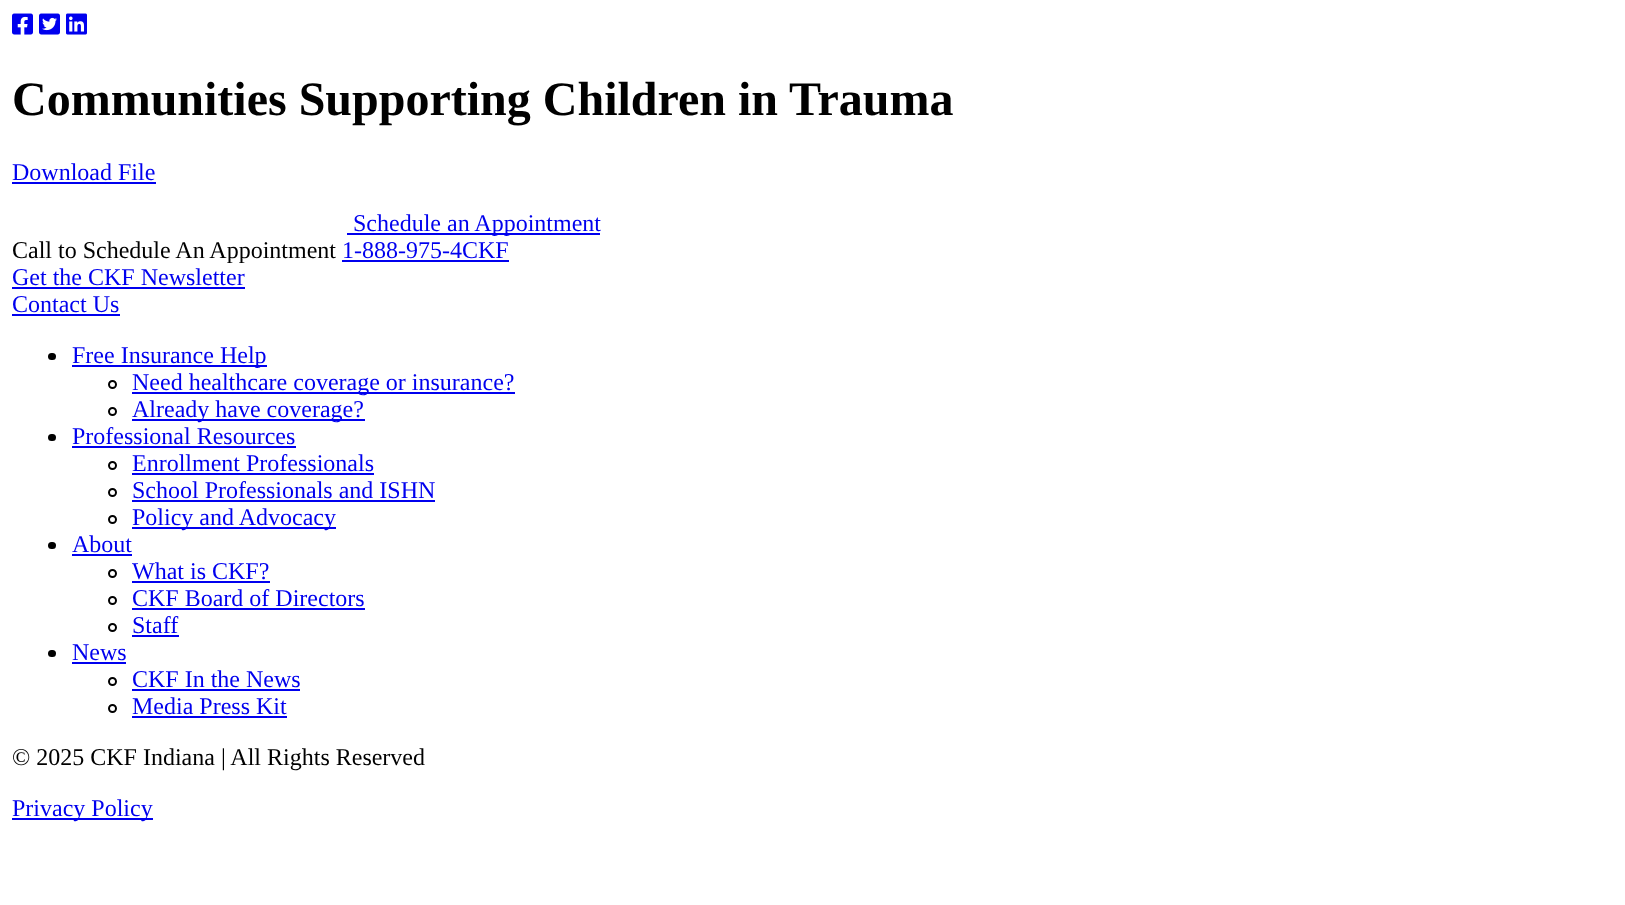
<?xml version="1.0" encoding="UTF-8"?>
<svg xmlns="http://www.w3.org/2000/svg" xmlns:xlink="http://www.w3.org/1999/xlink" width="1625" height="905">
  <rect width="100%" height="100%" fill="#ffffff" />
  <image x="12" y="13" width="21" height="22" xlink:href="image1.png" />
  <image x="39" y="13" width="21" height="22" xlink:href="image2.png" />
  <image x="66" y="13" width="21" height="22" xlink:href="image3.png" />
  <rect x="12" y="182" width="144" height="2" fill="#0000ee" />
  <rect x="347" y="233" width="253" height="2" fill="#0000ee" />
  <rect x="342" y="260" width="167" height="2" fill="#0000ee" />
  <rect x="12" y="287" width="233" height="2" fill="#0000ee" />
  <rect x="12" y="314" width="108" height="2" fill="#0000ee" />
  <rect x="48" y="353" width="8" height="7" rx="3.5" fill="#000000" />
  <rect x="72" y="365" width="195" height="2" fill="#0000ee" />
  <circle cx="112.5" cy="384.5" r="3.5" fill="none" stroke="#000000" stroke-width="2" />
  <rect x="132" y="392" width="383" height="2" fill="#0000ee" />
  <circle cx="112.5" cy="411.5" r="3.5" fill="none" stroke="#000000" stroke-width="2" />
  <rect x="132" y="419" width="233" height="2" fill="#0000ee" />
  <rect x="48" y="434" width="8" height="7" rx="3.5" fill="#000000" />
  <rect x="72" y="446" width="224" height="2" fill="#0000ee" />
  <circle cx="112.5" cy="465.5" r="3.5" fill="none" stroke="#000000" stroke-width="2" />
  <rect x="132" y="473" width="242" height="2" fill="#0000ee" />
  <circle cx="112.5" cy="492.5" r="3.5" fill="none" stroke="#000000" stroke-width="2" />
  <rect x="132" y="500" width="303" height="2" fill="#0000ee" />
  <circle cx="112.5" cy="519.5" r="3.5" fill="none" stroke="#000000" stroke-width="2" />
  <rect x="132" y="527" width="204" height="2" fill="#0000ee" />
  <rect x="48" y="542" width="8" height="7" rx="3.5" fill="#000000" />
  <rect x="72" y="554" width="60" height="2" fill="#0000ee" />
  <circle cx="112.5" cy="573.5" r="3.5" fill="none" stroke="#000000" stroke-width="2" />
  <rect x="132" y="581" width="138" height="2" fill="#0000ee" />
  <circle cx="112.5" cy="600.5" r="3.5" fill="none" stroke="#000000" stroke-width="2" />
  <rect x="132" y="608" width="233" height="2" fill="#0000ee" />
  <circle cx="112.5" cy="627.5" r="3.5" fill="none" stroke="#000000" stroke-width="2" />
  <rect x="132" y="635" width="47" height="2" fill="#0000ee" />
  <rect x="48" y="650" width="8" height="7" rx="3.5" fill="#000000" />
  <rect x="72" y="662" width="54" height="2" fill="#0000ee" />
  <circle cx="112.5" cy="681.5" r="3.5" fill="none" stroke="#000000" stroke-width="2" />
  <rect x="132" y="689" width="168" height="2" fill="#0000ee" />
  <circle cx="112.5" cy="708.5" r="3.5" fill="none" stroke="#000000" stroke-width="2" />
  <rect x="132" y="716" width="155" height="2" fill="#0000ee" />
  <rect x="12" y="818" width="141" height="2" fill="#0000ee" />
  <text x="12" y="115" style="font-family: Liberation Serif; font-size: 48px; font-weight: bold; fill: #000000">Communities Supporting Children in Trauma</text>
  <text x="12" y="180" style="font-family: Liberation Serif; font-size: 24px; fill: #0000ee">Download File</text>
  <text x="353" y="231" style="font-family: Liberation Serif; font-size: 24px; fill: #0000ee">Schedule an Appointment</text>
  <text x="12" y="258" style="font-family: Liberation Serif; font-size: 24px; fill: #000000">Call to Schedule An Appointment</text>
  <text x="342" y="258" style="font-family: Liberation Serif; font-size: 24px; fill: #0000ee">1-888-975-4CKF</text>
  <text x="12" y="285" style="font-family: Liberation Serif; font-size: 24px; fill: #0000ee">Get the CKF Newsletter</text>
  <text x="12" y="312" style="font-family: Liberation Serif; font-size: 24px; fill: #0000ee">Contact Us</text>
  <text x="72" y="363" style="font-family: Liberation Serif; font-size: 24px; fill: #0000ee">Free Insurance Help</text>
  <text x="132" y="390" style="font-family: Liberation Serif; font-size: 24px; fill: #0000ee">Need healthcare coverage or insurance?</text>
  <text x="132" y="417" style="font-family: Liberation Serif; font-size: 24px; fill: #0000ee">Already have coverage?</text>
  <text x="72" y="444" style="font-family: Liberation Serif; font-size: 24px; fill: #0000ee">Professional Resources</text>
  <text x="132" y="471" style="font-family: Liberation Serif; font-size: 24px; fill: #0000ee">Enrollment Professionals</text>
  <text x="132" y="498" style="font-family: Liberation Serif; font-size: 24px; fill: #0000ee">School Professionals and ISHN</text>
  <text x="132" y="525" style="font-family: Liberation Serif; font-size: 24px; fill: #0000ee">Policy and Advocacy</text>
  <text x="72" y="552" style="font-family: Liberation Serif; font-size: 24px; fill: #0000ee">About</text>
  <text x="132" y="579" style="font-family: Liberation Serif; font-size: 24px; fill: #0000ee">What is CKF?</text>
  <text x="132" y="606" style="font-family: Liberation Serif; font-size: 24px; fill: #0000ee">CKF Board of Directors</text>
  <text x="132" y="633" style="font-family: Liberation Serif; font-size: 24px; fill: #0000ee">Staff</text>
  <text x="72" y="660" style="font-family: Liberation Serif; font-size: 24px; fill: #0000ee">News</text>
  <text x="132" y="687" style="font-family: Liberation Serif; font-size: 24px; fill: #0000ee">CKF In the News</text>
  <text x="132" y="714" style="font-family: Liberation Serif; font-size: 24px; fill: #0000ee">Media Press Kit</text>
  <text x="12" y="765" style="font-family: Liberation Serif; font-size: 24px; fill: #000000">© 2025 CKF Indiana | All Rights Reserved</text>
  <text x="12" y="816" style="font-family: Liberation Serif; font-size: 24px; fill: #0000ee">Privacy Policy</text>
</svg>
